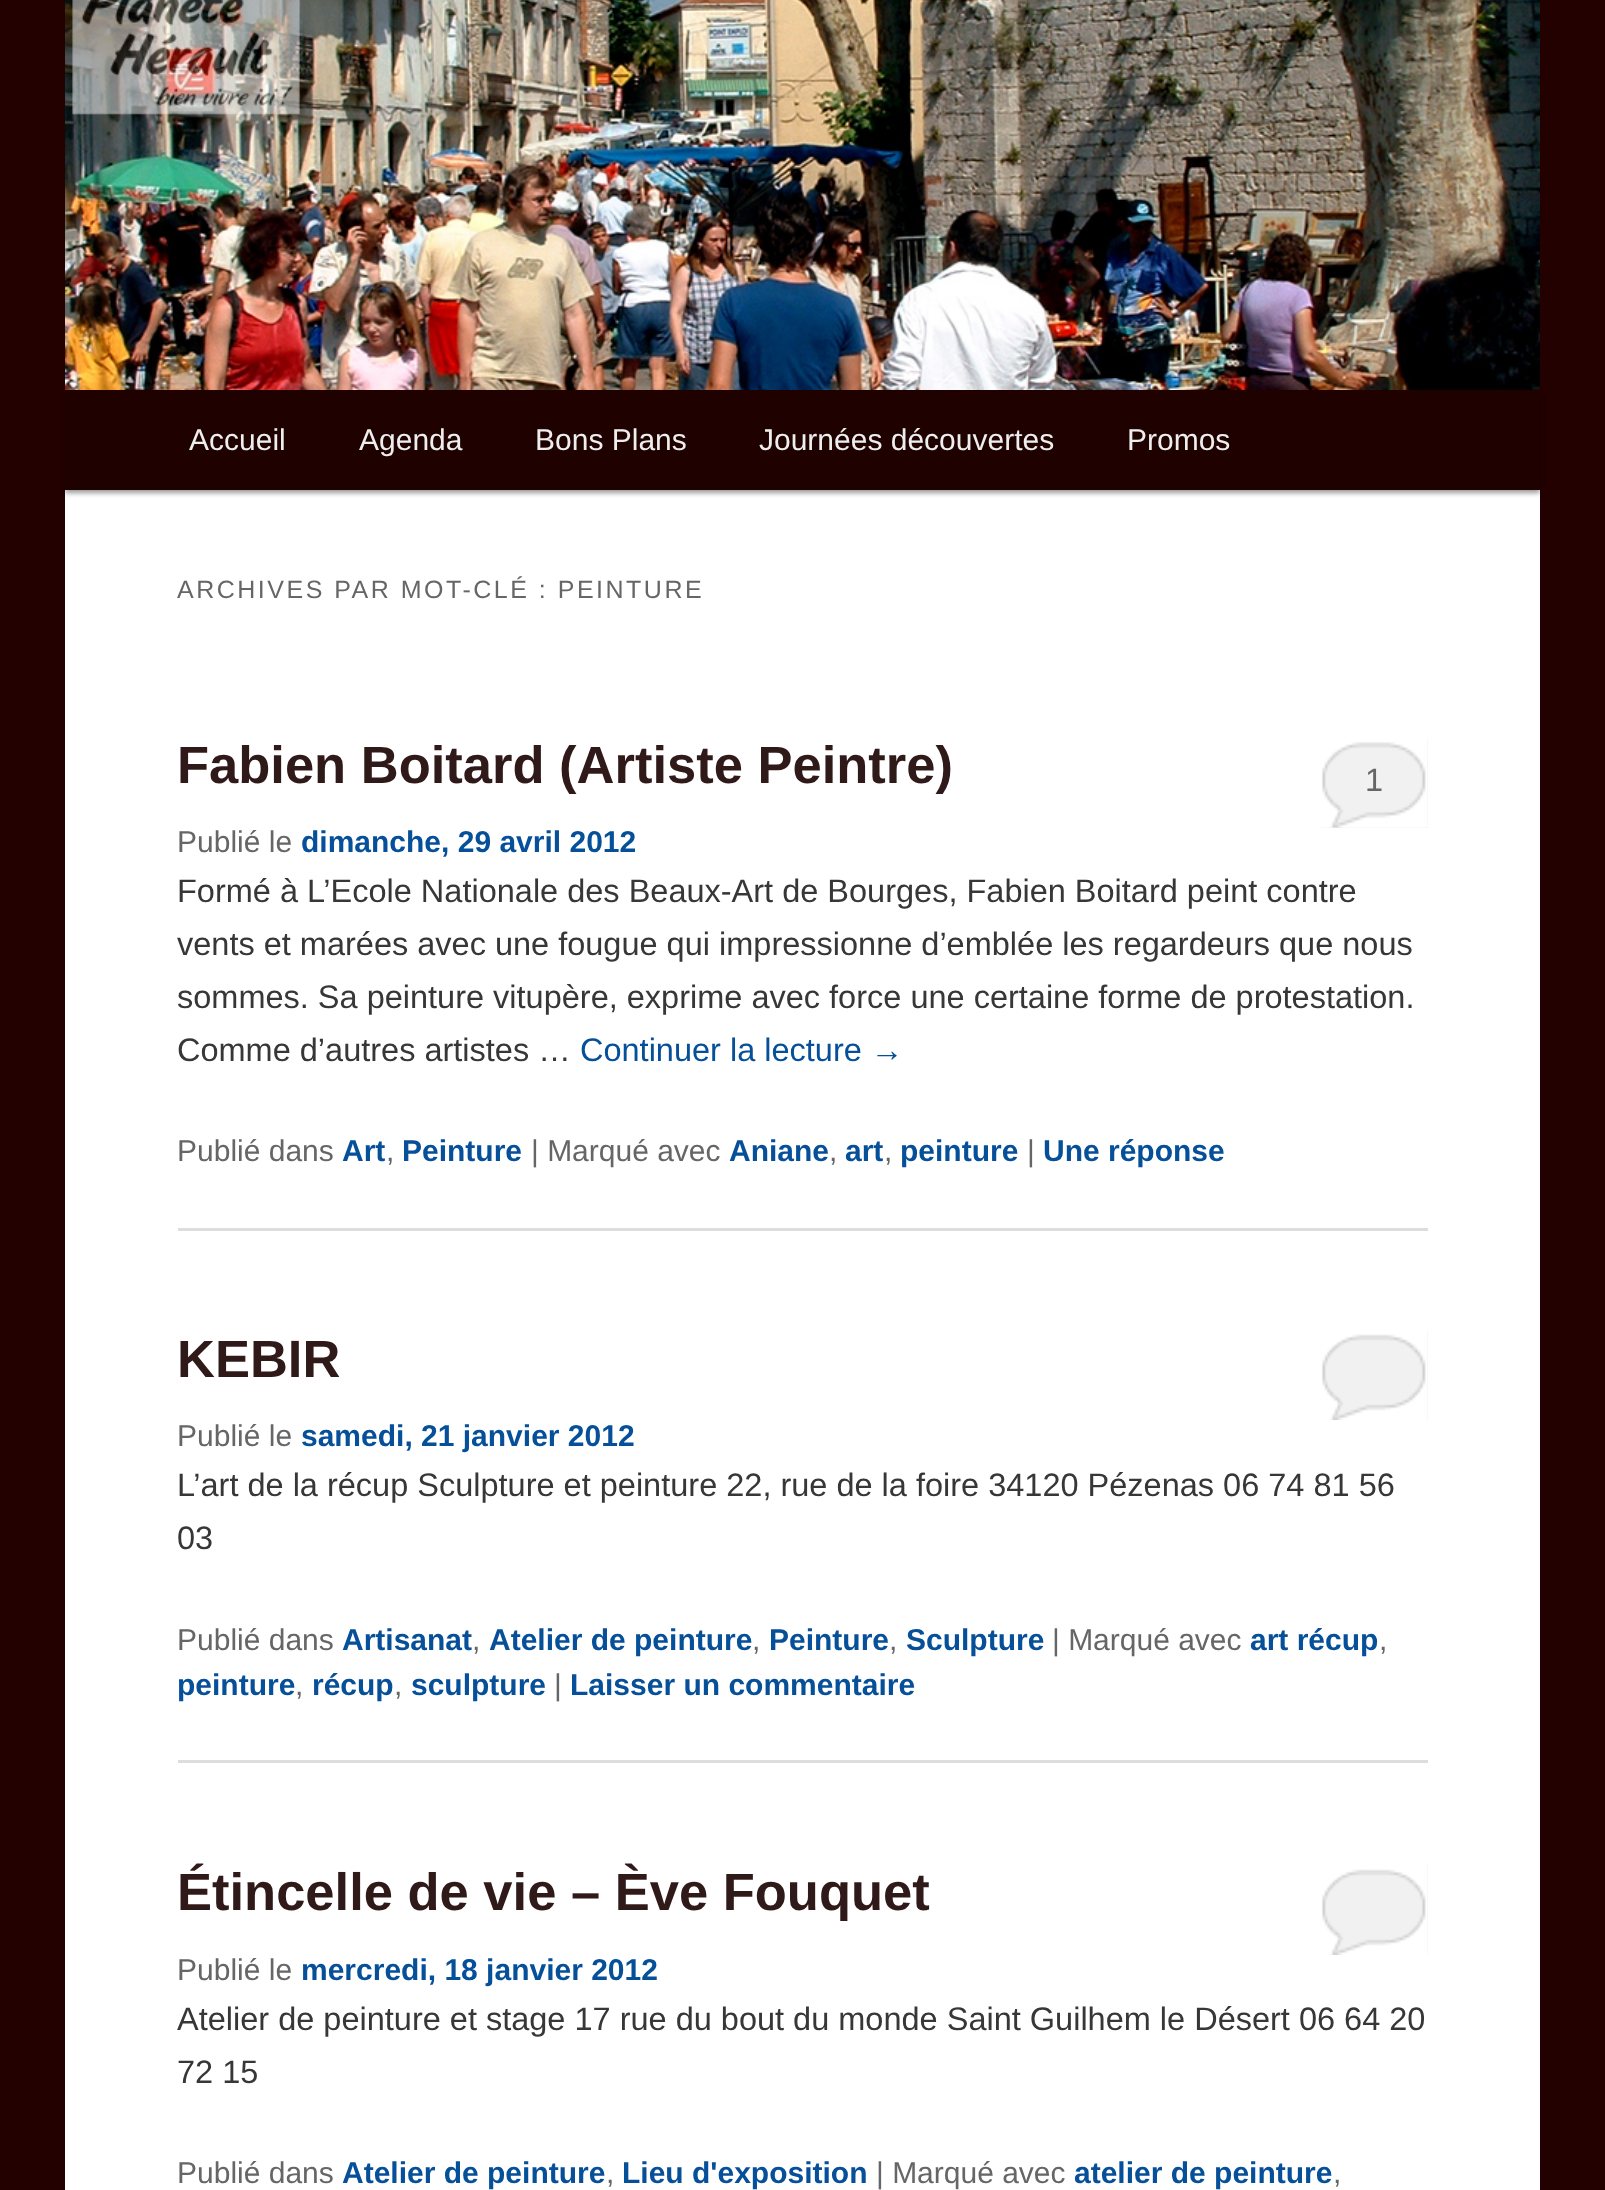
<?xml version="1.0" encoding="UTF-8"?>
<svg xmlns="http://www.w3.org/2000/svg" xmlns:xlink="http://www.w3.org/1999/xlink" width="1605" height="2190">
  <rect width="100%" height="100%" fill="#230100" />
  <rect x="65" y="490" width="1475" height="1700" fill="#ffffff" />
  <rect x="65" y="393" width="1475" height="100" fill="#000000" fill-opacity="0.4" filter="blur(2.5px)" />
  <image x="65" y="0" width="1475" height="390" xlink:href="image1.png" />
  <rect x="65" y="390" width="1475" height="100" fill="#1f0100" />
  <rect x="178" y="1228" width="1250" height="3" fill="#dddddd" />
  <rect x="1320" y="738" width="108" height="90" fill="#f1f1f1" />
  <image x="1320" y="738" width="108" height="90" xlink:href="image2.png" />
  <rect x="178" y="1760" width="1250" height="3" fill="#dddddd" />
  <rect x="1321" y="1330" width="107" height="90" fill="#f1f1f1" />
  <image x="1320" y="1330" width="108" height="90" xlink:href="image3.png" />
  <rect x="1321" y="1865" width="107" height="90" fill="#f1f1f1" />
  <image x="1320" y="1865" width="108" height="90" xlink:href="image3.png" />
  <text x="189" y="450" style="font-family: Liberation Sans; font-size: 30px; fill: #eeeeee">Accueil</text>
  <text x="359" y="450" style="font-family: Liberation Sans; font-size: 30px; fill: #eeeeee">Agenda</text>
  <text x="535" y="450" style="font-family: Liberation Sans; font-size: 30px; fill: #eeeeee">Bons Plans</text>
  <text x="759" y="450" style="font-family: Liberation Sans; font-size: 30px; fill: #eeeeee">Journées découvertes</text>
  <text x="1127" y="450" style="font-family: Liberation Sans; font-size: 30px; fill: #eeeeee">Promos</text>
  <text x="177" y="598" style="font-family: Liberation Sans; font-size: 25px; letter-spacing: 2.5px; fill: #666666">ARCHIVES PAR MOT-CLÉ : PEINTURE</text>
  <text x="177" y="783" style="font-family: Liberation Sans; font-size: 52.5px; font-weight: bold; fill: #2f1919">Fabien Boitard (Artiste Peintre)</text>
  <text x="1365" y="791" style="font-family: Liberation Sans; font-size: 32.5px; fill: #666666">1</text>
  <text x="177" y="852" style="font-family: Liberation Sans; font-size: 30px; fill: #666666">Publié le</text>
  <text x="301" y="852" style="font-family: Liberation Sans; font-size: 30px; font-weight: bold; fill: #064f99">dimanche, 29 avril 2012</text>
  <text x="177" y="902" style="font-family: Liberation Sans; font-size: 32.5px; fill: #373737">Formé à L’Ecole Nationale des Beaux-Art de Bourges, Fabien Boitard peint contre</text>
  <text x="177" y="955" style="font-family: Liberation Sans; font-size: 32.5px; fill: #373737">vents et marées avec une fougue qui impressionne d’emblée les regardeurs que nous</text>
  <text x="177" y="1008" style="font-family: Liberation Sans; font-size: 32.5px; fill: #373737">sommes. Sa peinture vitupère, exprime avec force une certaine forme de protestation.</text>
  <text x="177" y="1061" style="font-family: Liberation Sans; font-size: 32.5px; fill: #373737">Comme d’autres artistes …</text>
  <text x="580" y="1061" style="font-family: Liberation Sans; font-size: 32.5px; fill: #064f99">Continuer la lecture →</text>
  <text x="177" y="1161" style="font-family: Liberation Sans; font-size: 30px; fill: #666666">Publié dans</text>
  <text x="342" y="1161" style="font-family: Liberation Sans; font-size: 30px; font-weight: bold; fill: #064f99">Art</text>
  <text x="386" y="1161" style="font-family: Liberation Sans; font-size: 30px; fill: #666666">,</text>
  <text x="402" y="1161" style="font-family: Liberation Sans; font-size: 30px; font-weight: bold; fill: #064f99">Peinture</text>
  <text x="531" y="1161" style="font-family: Liberation Sans; font-size: 30px; fill: #666666">| Marqué avec</text>
  <text x="729" y="1161" style="font-family: Liberation Sans; font-size: 30px; font-weight: bold; fill: #064f99">Aniane</text>
  <text x="829" y="1161" style="font-family: Liberation Sans; font-size: 30px; fill: #666666">,</text>
  <text x="845" y="1161" style="font-family: Liberation Sans; font-size: 30px; font-weight: bold; fill: #064f99">art</text>
  <text x="884" y="1161" style="font-family: Liberation Sans; font-size: 30px; fill: #666666">,</text>
  <text x="900" y="1161" style="font-family: Liberation Sans; font-size: 30px; font-weight: bold; fill: #064f99">peinture</text>
  <text x="1027" y="1161" style="font-family: Liberation Sans; font-size: 30px; fill: #666666">|</text>
  <text x="1043" y="1161" style="font-family: Liberation Sans; font-size: 30px; font-weight: bold; fill: #064f99">Une réponse</text>
  <text x="177" y="1377" style="font-family: Liberation Sans; font-size: 52.5px; font-weight: bold; fill: #2f1919">KEBIR</text>
  <text x="177" y="1446" style="font-family: Liberation Sans; font-size: 30px; fill: #666666">Publié le</text>
  <text x="301" y="1446" style="font-family: Liberation Sans; font-size: 30px; font-weight: bold; fill: #064f99">samedi, 21 janvier 2012</text>
  <text x="177" y="1496" style="font-family: Liberation Sans; font-size: 32.5px; fill: #373737">L’art de la récup Sculpture et peinture 22, rue de la foire 34120 Pézenas 06 74 81 56</text>
  <text x="177" y="1549" style="font-family: Liberation Sans; font-size: 32.5px; fill: #373737">03</text>
  <text x="177" y="1650" style="font-family: Liberation Sans; font-size: 30px; fill: #666666">Publié dans</text>
  <text x="342" y="1650" style="font-family: Liberation Sans; font-size: 30px; font-weight: bold; fill: #064f99">Artisanat</text>
  <text x="472" y="1650" style="font-family: Liberation Sans; font-size: 30px; fill: #666666">,</text>
  <text x="489" y="1650" style="font-family: Liberation Sans; font-size: 30px; font-weight: bold; fill: #064f99">Atelier de peinture</text>
  <text x="752" y="1650" style="font-family: Liberation Sans; font-size: 30px; fill: #666666">,</text>
  <text x="769" y="1650" style="font-family: Liberation Sans; font-size: 30px; font-weight: bold; fill: #064f99">Peinture</text>
  <text x="889" y="1650" style="font-family: Liberation Sans; font-size: 30px; fill: #666666">,</text>
  <text x="906" y="1650" style="font-family: Liberation Sans; font-size: 30px; font-weight: bold; fill: #064f99">Sculpture</text>
  <text x="1052" y="1650" style="font-family: Liberation Sans; font-size: 30px; fill: #666666">| Marqué avec</text>
  <text x="1250" y="1650" style="font-family: Liberation Sans; font-size: 30px; font-weight: bold; fill: #064f99">art récup</text>
  <text x="1379" y="1650" style="font-family: Liberation Sans; font-size: 30px; fill: #666666">,</text>
  <text x="177" y="1695" style="font-family: Liberation Sans; font-size: 30px; font-weight: bold; fill: #064f99">peinture</text>
  <text x="295" y="1695" style="font-family: Liberation Sans; font-size: 30px; fill: #666666">,</text>
  <text x="312" y="1695" style="font-family: Liberation Sans; font-size: 30px; font-weight: bold; fill: #064f99">récup</text>
  <text x="394" y="1695" style="font-family: Liberation Sans; font-size: 30px; fill: #666666">,</text>
  <text x="411" y="1695" style="font-family: Liberation Sans; font-size: 30px; font-weight: bold; fill: #064f99">sculpture</text>
  <text x="554" y="1695" style="font-family: Liberation Sans; font-size: 30px; fill: #666666">|</text>
  <text x="570" y="1695" style="font-family: Liberation Sans; font-size: 30px; font-weight: bold; fill: #064f99">Laisser un commentaire</text>
  <text x="177" y="1910" style="font-family: Liberation Sans; font-size: 52.5px; font-weight: bold; fill: #2f1919">Étincelle de vie – Ève Fouquet</text>
  <text x="177" y="1980" style="font-family: Liberation Sans; font-size: 30px; fill: #666666">Publié le</text>
  <text x="301" y="1980" style="font-family: Liberation Sans; font-size: 30px; font-weight: bold; fill: #064f99">mercredi, 18 janvier 2012</text>
  <text x="177" y="2030" style="font-family: Liberation Sans; font-size: 32.5px; fill: #373737">Atelier de peinture et stage 17 rue du bout du monde Saint Guilhem le Désert 06 64 20</text>
  <text x="177" y="2083" style="font-family: Liberation Sans; font-size: 32.5px; fill: #373737">72 15</text>
  <text x="177" y="2183" style="font-family: Liberation Sans; font-size: 30px; fill: #666666">Publié dans</text>
  <text x="342" y="2183" style="font-family: Liberation Sans; font-size: 30px; font-weight: bold; fill: #064f99">Atelier de peinture</text>
  <text x="606" y="2183" style="font-family: Liberation Sans; font-size: 30px; fill: #666666">,</text>
  <text x="622" y="2183" style="font-family: Liberation Sans; font-size: 30px; font-weight: bold; fill: #064f99">Lieu d'exposition</text>
  <text x="876" y="2183" style="font-family: Liberation Sans; font-size: 30px; fill: #666666">| Marqué avec</text>
  <text x="1074" y="2183" style="font-family: Liberation Sans; font-size: 30px; font-weight: bold; fill: #064f99">atelier de peinture</text>
  <text x="1333" y="2183" style="font-family: Liberation Sans; font-size: 30px; fill: #666666">,</text>
</svg>
